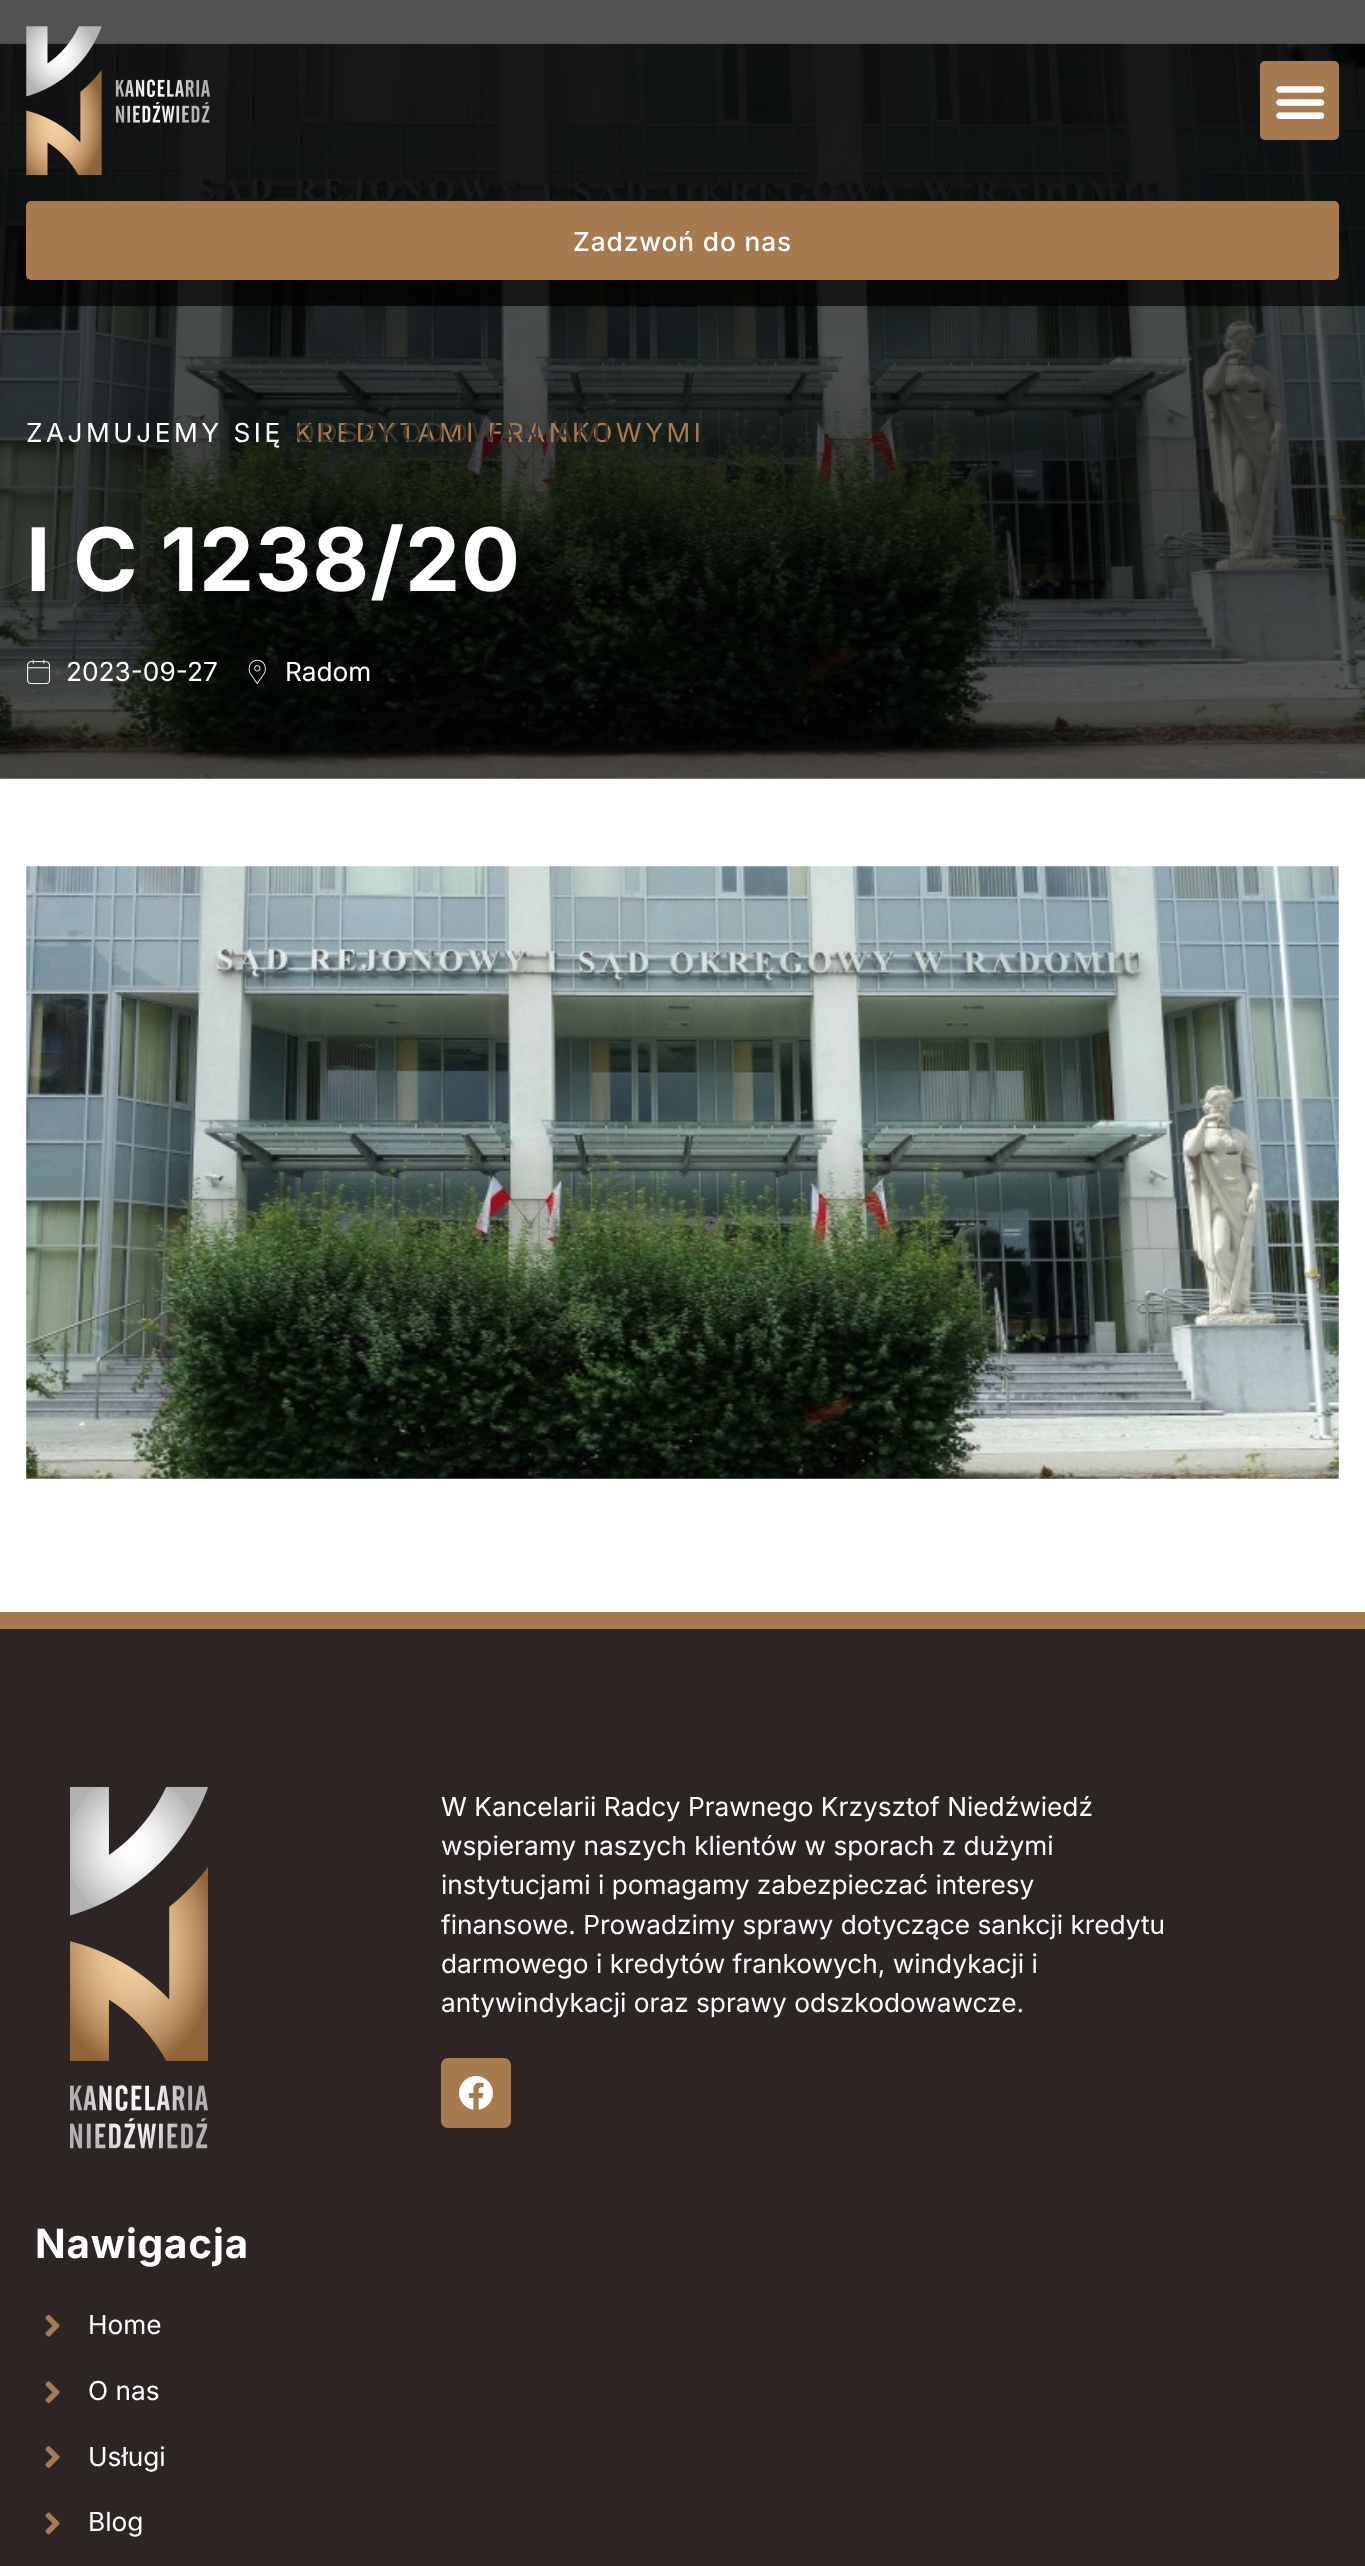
<?xml version="1.0" encoding="UTF-8"?>
<svg xmlns="http://www.w3.org/2000/svg" xmlns:xlink="http://www.w3.org/1999/xlink" width="1365" height="2566">
  <rect width="100%" height="100%" fill="#ffffff" />
  <image x="0" y="43" width="1365" height="736" xlink:href="image3.png" />
  <rect width="1365" height="306" fill="#000000" fill-opacity="0.68" />
  <image x="26" y="26" width="184" height="149" xlink:href="image1.png" />
  <rect x="1260" y="61" width="79" height="79" rx="5" fill="#a77b4f" />
  <image x="1276" y="86" width="49" height="33" xlink:href="image2.png" />
  <rect x="26" y="201" width="1313" height="79" rx="5" fill="#a77b4f" />
  <image x="27" y="659" width="23" height="25" xlink:href="image4.png" />
  <image x="248" y="659" width="18" height="26" xlink:href="image5.png" />
  <image x="26" y="866" width="1313" height="613" xlink:href="image6.png" />
  <rect y="1629" width="1365" height="937" fill="#2d2424" />
  <rect y="1612" width="1365" height="17" fill="#a77b4f" />
  <image x="70" y="1787" width="138" height="362" xlink:href="image7.png" />
  <rect x="441" y="2058" width="70" height="70" rx="7" fill="#a77b4f" />
  <image x="459" y="2076" width="34" height="34" xlink:href="image8.png" />
  <image x="45" y="2314" width="15" height="23" xlink:href="image9.png" />
  <image x="45" y="2381" width="15" height="23" xlink:href="image10.png" />
  <image x="45" y="2446" width="15" height="22" xlink:href="image11.png" />
  <image x="45" y="2512" width="15" height="23" xlink:href="image12.png" />
  <text x="573" y="251" style="font-family: Inter; font-size: 26.25px; font-weight: 500; letter-spacing: 0.9px; fill: #ffffff">Zadzwoń do nas</text>
  <text x="26" y="442" style="font-family: Inter; font-size: 26.25px; letter-spacing: 3.5px; fill: #ffffff">ZAJMUJEMY SIĘ</text>
  <text x="295" y="442" style="font-family: Inter; font-size: 26.25px; letter-spacing: 3.5px; fill: #a77b4f">KREDYTAMI FRANKOWYMI</text>
  <text x="295" y="442" style="font-family: Inter; font-size: 26.25px; letter-spacing: 3.5px; fill: #40382c">ODSZKODOWANIAMI</text>
  <text x="26" y="591" style="font-family: Inter; font-size: 87.5px; font-weight: bold; letter-spacing: 0.9px; fill: #ffffff">I C 1238/20</text>
  <text x="66" y="681" style="font-family: Inter; font-size: 26.25px; fill: #ffffff">2023-09-27</text>
  <text x="285" y="681" style="font-family: Inter; font-size: 26.25px; fill: #ffffff">Radom</text>
  <text x="441" y="1816" style="font-family: Inter; font-size: 26.25px; fill: #ffffff">W Kancelarii Radcy Prawnego Krzysztof Niedźwiedź</text>
  <text x="441" y="1855" style="font-family: Inter; font-size: 26.25px; fill: #ffffff">wspieramy naszych klientów w sporach z dużymi</text>
  <text x="441" y="1894" style="font-family: Inter; font-size: 26.25px; fill: #ffffff">instytucjami i pomagamy zabezpieczać interesy</text>
  <text x="441" y="1934" style="font-family: Inter; font-size: 26.25px; fill: #ffffff">finansowe. Prowadzimy sprawy dotyczące sankcji kredytu</text>
  <text x="441" y="1973" style="font-family: Inter; font-size: 26.25px; fill: #ffffff">darmowego i kredytów frankowych, windykacji i</text>
  <text x="441" y="2012" style="font-family: Inter; font-size: 26.25px; fill: #ffffff">antywindykacji oraz sprawy odszkodowawcze.</text>
  <text x="35" y="2258" style="font-family: Inter; font-size: 40.25px; font-weight: bold; letter-spacing: 0.9px; fill: #ffffff">Nawigacja</text>
  <text x="88" y="2334" style="font-family: Inter; font-size: 26.25px; fill: #ffffff">Home</text>
  <text x="88" y="2400" style="font-family: Inter; font-size: 26.25px; fill: #ffffff">O nas</text>
  <text x="88" y="2466" style="font-family: Inter; font-size: 26.25px; fill: #ffffff">Usługi</text>
  <text x="88" y="2531" style="font-family: Inter; font-size: 26.25px; fill: #ffffff">Blog</text>
</svg>
